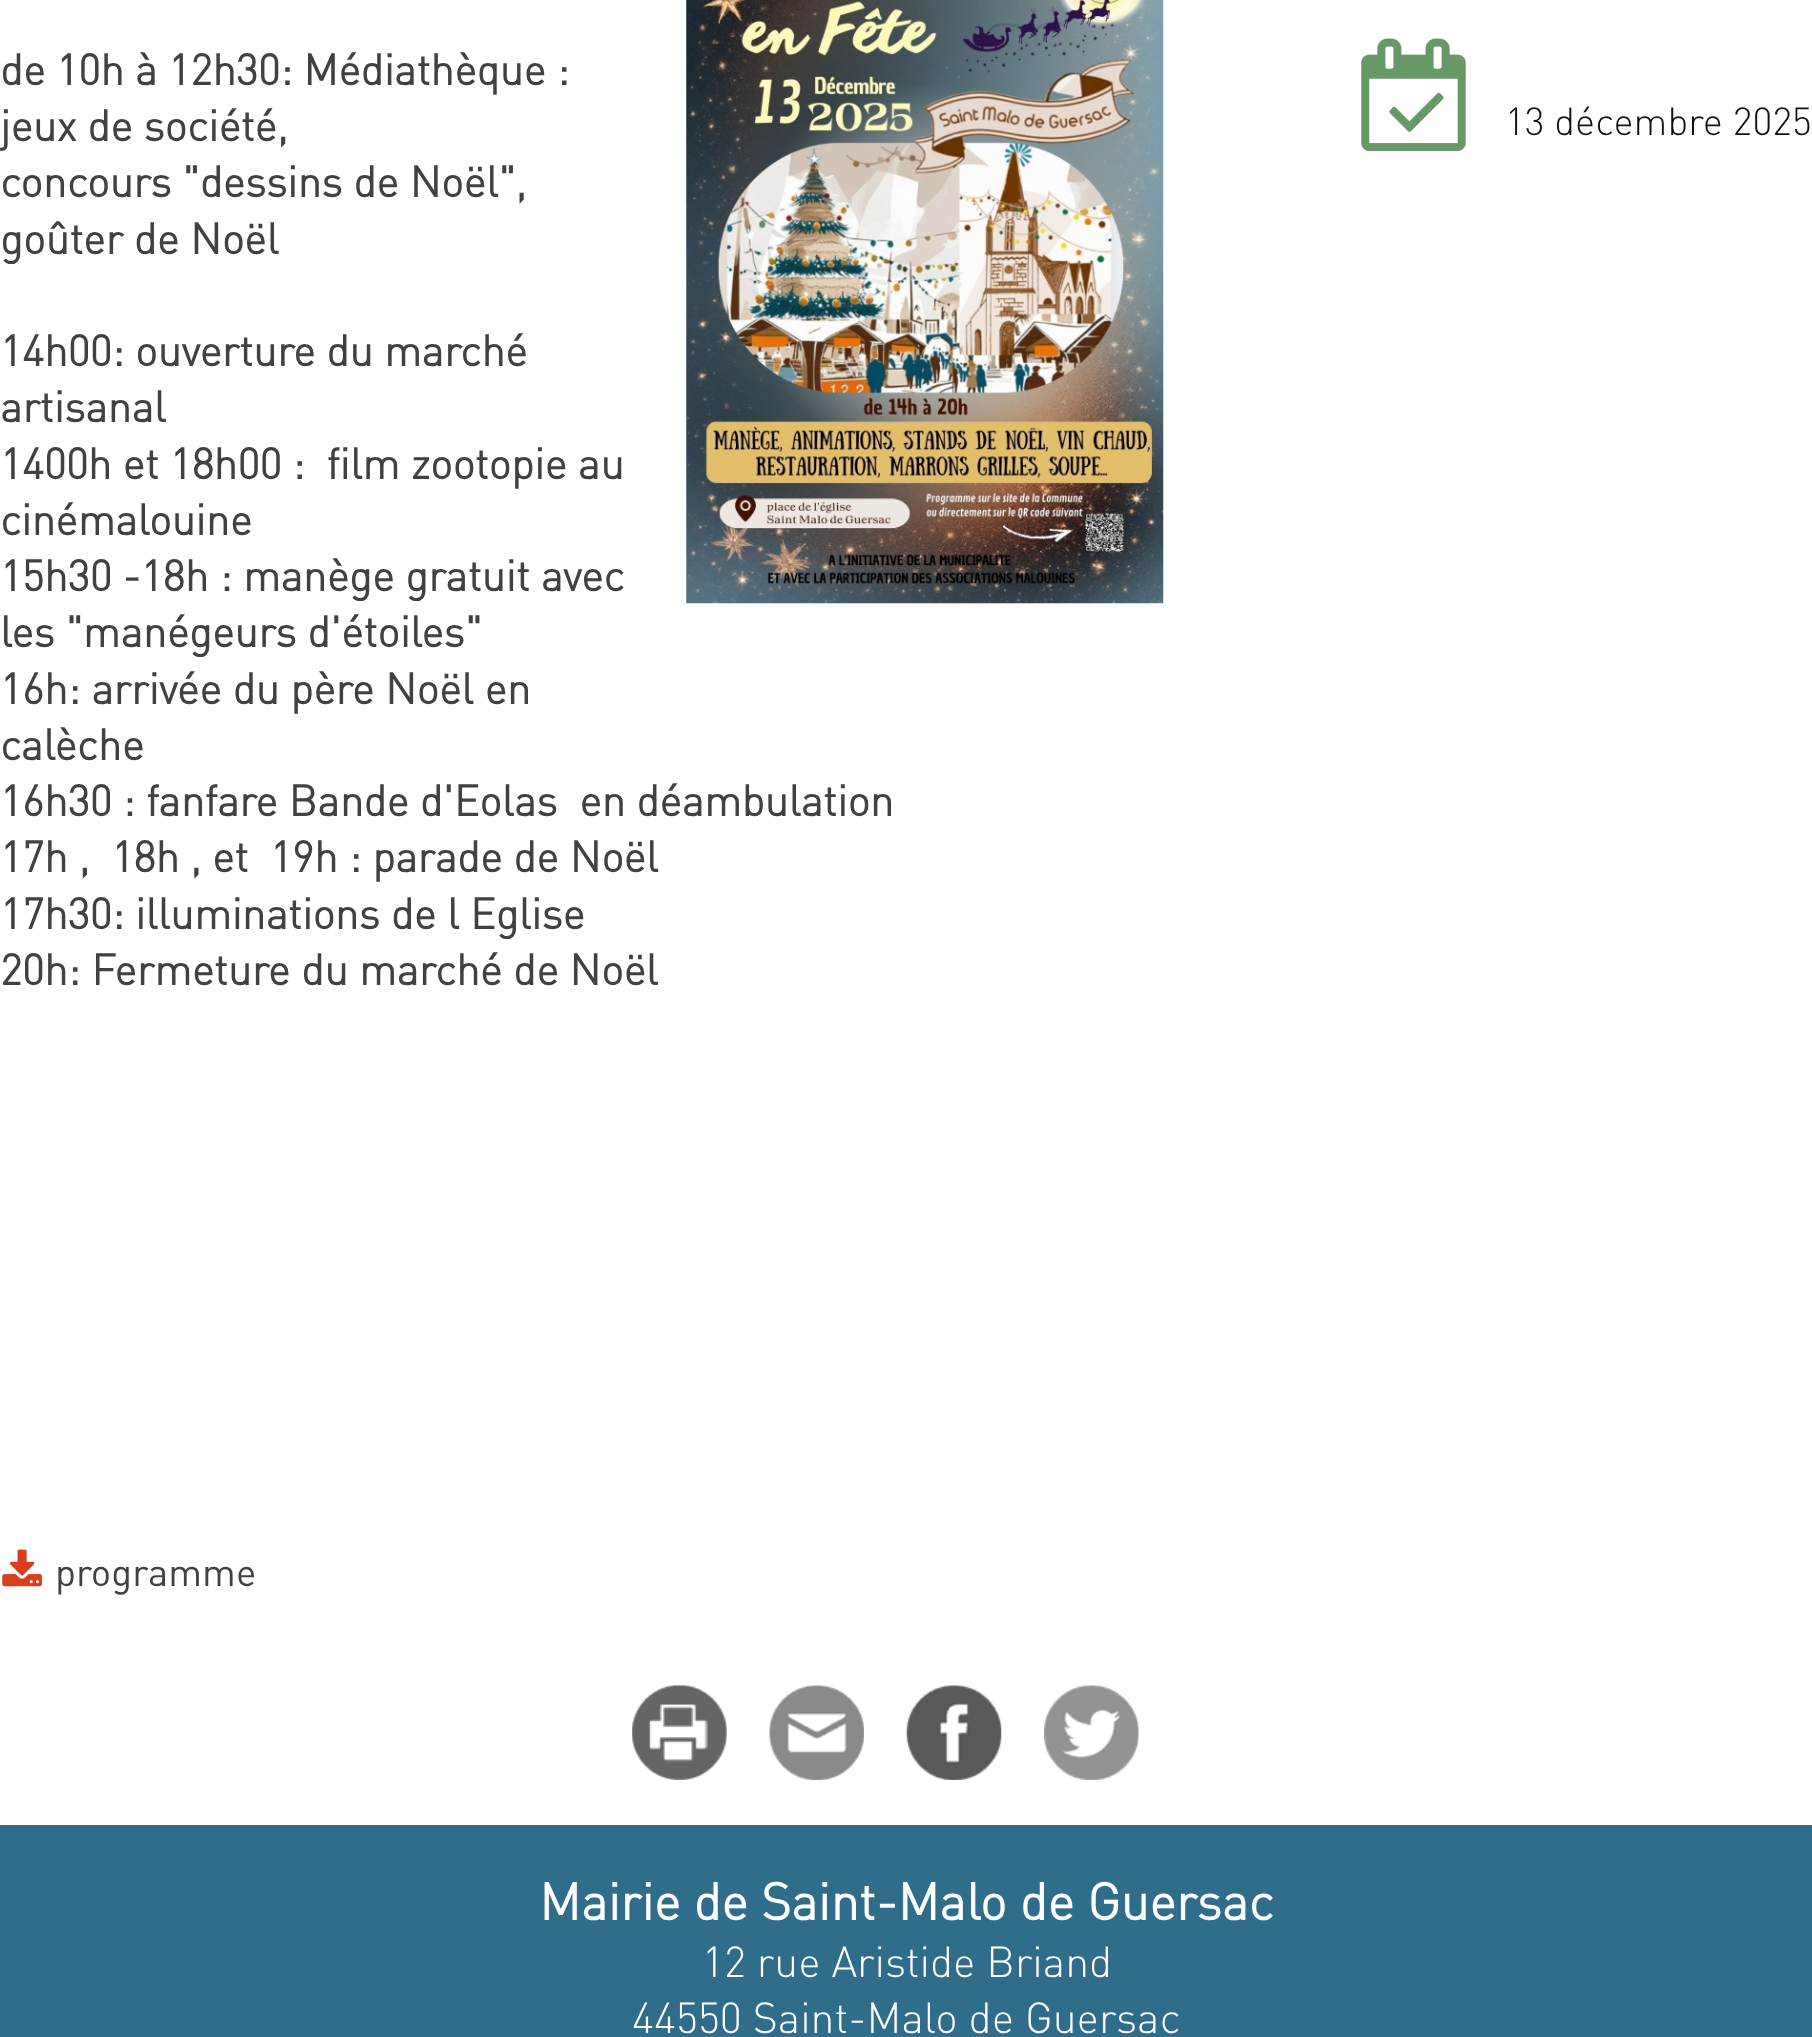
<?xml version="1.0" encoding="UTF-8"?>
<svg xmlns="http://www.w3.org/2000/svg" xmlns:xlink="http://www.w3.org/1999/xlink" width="1812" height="2037">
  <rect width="100%" height="100%" fill="#ffffff" />
  <image x="686" y="0" width="478" height="604" xlink:href="image1.png" />
  <image x="2" y="1549" width="40" height="38" xlink:href="image2.png" />
  <image x="1361" y="38" width="105" height="114" xlink:href="image3.png" />
  <image x="632" y="1685" width="95" height="95" xlink:href="image4.png" />
  <image x="769" y="1685" width="95" height="95" xlink:href="image5.png" />
  <image x="906" y="1685" width="96" height="95" xlink:href="image6.png" />
  <image x="1044" y="1685" width="95" height="95" xlink:href="image7.png" />
  <rect y="1825" width="1812" height="212" fill="#2f6d8b" />
  <text x="0" y="85" style="font-family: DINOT; font-size: 42.75px; font-weight: bold; fill: #414141">de 10h à 12h30: Médiathèque :</text>
  <text x="0" y="141" style="font-family: DINOT; font-size: 42.75px; font-weight: bold; fill: #414141">jeux de société,</text>
  <text x="0" y="197" style="font-family: DINOT; font-size: 42.75px; font-weight: bold; fill: #414141">concours "dessins de Noël",</text>
  <text x="0" y="254" style="font-family: DINOT; font-size: 42.75px; font-weight: bold; fill: #414141">goûter de Noël</text>
  <text x="0" y="366" style="font-family: DINOT; font-size: 42.75px; font-weight: bold; fill: #414141">14h00: ouverture du marché</text>
  <text x="0" y="422" style="font-family: DINOT; font-size: 42.75px; font-weight: bold; fill: #414141">artisanal</text>
  <text x="0" y="479" style="font-family: DINOT; font-size: 42.75px; font-weight: bold; fill: #414141" xml:space="preserve">1400h et 18h00 :  film zootopie au</text>
  <text x="0" y="535" style="font-family: DINOT; font-size: 42.75px; font-weight: bold; fill: #414141">cinémalouine</text>
  <text x="0" y="591" style="font-family: DINOT; font-size: 42.75px; font-weight: bold; fill: #414141">15h30 -18h : manège gratuit avec</text>
  <text x="0" y="647" style="font-family: DINOT; font-size: 42.75px; font-weight: bold; fill: #414141">les "manégeurs d'étoiles"</text>
  <text x="0" y="704" style="font-family: DINOT; font-size: 42.75px; font-weight: bold; fill: #414141">16h: arrivée du père Noël en</text>
  <text x="0" y="760" style="font-family: DINOT; font-size: 42.75px; font-weight: bold; fill: #414141">calèche</text>
  <text x="0" y="816" style="font-family: DINOT; font-size: 42.75px; font-weight: bold; fill: #414141" xml:space="preserve">16h30 : fanfare Bande d'Eolas  en déambulation</text>
  <text x="0" y="872" style="font-family: DINOT; font-size: 42.75px; font-weight: bold; fill: #414141" xml:space="preserve">17h ,  18h , et  19h : parade de Noël</text>
  <text x="0" y="929" style="font-family: DINOT; font-size: 42.75px; font-weight: bold; fill: #414141">17h30: illuminations de l Eglise</text>
  <text x="0" y="985" style="font-family: DINOT; font-size: 42.75px; font-weight: bold; fill: #414141">20h: Fermeture du marché de Noël</text>
  <text x="55" y="1586" style="font-family: DINOT; font-size: 38.5px; fill: #414141">programme</text>
  <text x="1505" y="135" style="font-family: DINOT; font-size: 38.5px; font-weight: 300; fill: #111111">13 décembre 2025</text>
  <text x="539" y="1920" style="font-family: DINOT; font-size: 51.25px; font-weight: bold; fill: #ffffff">Mairie de Saint-Malo de Guersac</text>
  <text x="702" y="1977" style="font-family: DINOT; font-size: 42.75px; font-weight: 300; fill: #ffffff">12 rue Aristide Briand</text>
  <text x="632" y="2033" style="font-family: DINOT; font-size: 42.75px; font-weight: 300; fill: #ffffff">44550 Saint-Malo de Guersac</text>
</svg>
